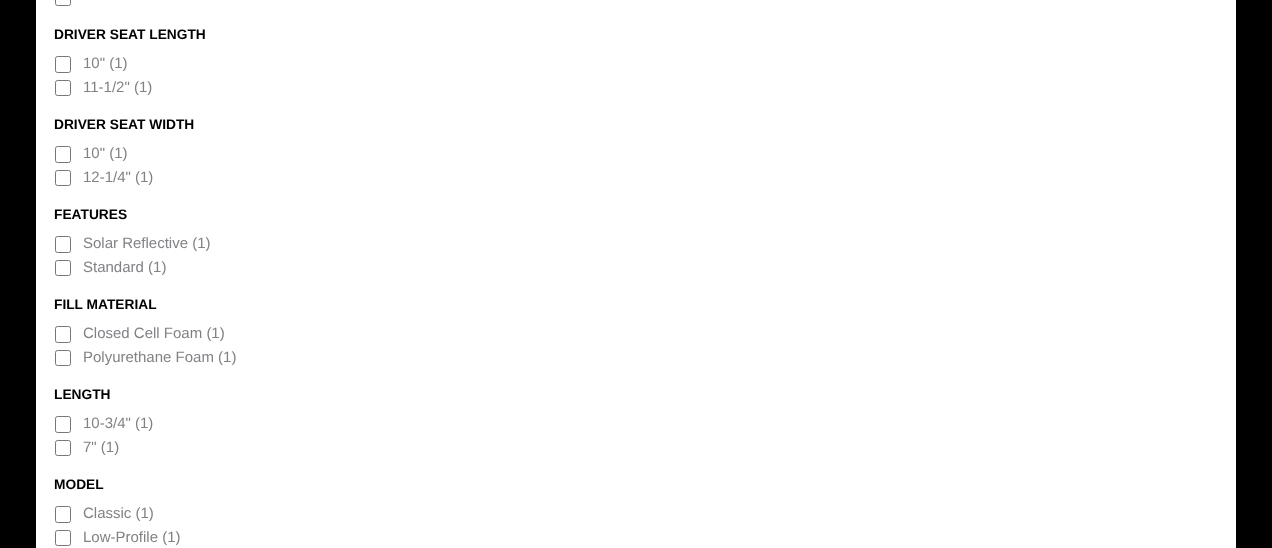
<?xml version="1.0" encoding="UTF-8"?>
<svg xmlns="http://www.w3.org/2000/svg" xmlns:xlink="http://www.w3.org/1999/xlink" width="1272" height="548">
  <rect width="100%" height="100%" fill="#000000" />
  <rect x="36" width="1200" height="548" fill="#ffffff" />
  <rect x="55.5" y="-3.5" width="15" height="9" rx="2" fill="none" stroke="#767676" />
  <rect x="55.5" y="56.5" width="15" height="16" rx="2" fill="none" stroke="#767676" />
  <rect x="55.5" y="80.5" width="15" height="15" rx="2" fill="none" stroke="#767676" />
  <rect x="55.5" y="146.5" width="15" height="16" rx="2" fill="none" stroke="#767676" />
  <rect x="55.5" y="170.5" width="15" height="15" rx="2" fill="none" stroke="#767676" />
  <rect x="55.5" y="236.5" width="15" height="16" rx="2" fill="none" stroke="#767676" />
  <rect x="55.5" y="260.5" width="15" height="15" rx="2" fill="none" stroke="#767676" />
  <rect x="55.5" y="326.5" width="15" height="16" rx="2" fill="none" stroke="#767676" />
  <rect x="55.5" y="350.5" width="15" height="15" rx="2" fill="none" stroke="#767676" />
  <rect x="55.5" y="416.5" width="15" height="16" rx="2" fill="none" stroke="#767676" />
  <rect x="55.5" y="440.5" width="15" height="15" rx="2" fill="none" stroke="#767676" />
  <rect x="55.5" y="506.5" width="15" height="16" rx="2" fill="none" stroke="#767676" />
  <rect x="55.5" y="530.5" width="15" height="15" rx="2" fill="none" stroke="#767676" />
  <text x="54" y="39" style="font-family: Liberation Sans; font-size: 13.75px; font-weight: bold; fill: #000000">DRIVER SEAT LENGTH</text>
  <text x="83" y="68" style="font-family: Liberation Sans; font-size: 15px; fill: #808285">10" (1)</text>
  <text x="83" y="92" style="font-family: Liberation Sans; font-size: 15px; fill: #808285">11-1/2" (1)</text>
  <text x="54" y="129" style="font-family: Liberation Sans; font-size: 13.75px; font-weight: bold; fill: #000000">DRIVER SEAT WIDTH</text>
  <text x="83" y="158" style="font-family: Liberation Sans; font-size: 15px; fill: #808285">10" (1)</text>
  <text x="83" y="182" style="font-family: Liberation Sans; font-size: 15px; fill: #808285">12-1/4" (1)</text>
  <text x="54" y="219" style="font-family: Liberation Sans; font-size: 13.75px; font-weight: bold; fill: #000000">FEATURES</text>
  <text x="83" y="248" style="font-family: Liberation Sans; font-size: 15px; fill: #808285">Solar Reflective (1)</text>
  <text x="83" y="272" style="font-family: Liberation Sans; font-size: 15px; fill: #808285">Standard (1)</text>
  <text x="54" y="309" style="font-family: Liberation Sans; font-size: 13.75px; font-weight: bold; fill: #000000">FILL MATERIAL</text>
  <text x="83" y="338" style="font-family: Liberation Sans; font-size: 15px; fill: #808285">Closed Cell Foam (1)</text>
  <text x="83" y="362" style="font-family: Liberation Sans; font-size: 15px; fill: #808285">Polyurethane Foam (1)</text>
  <text x="54" y="399" style="font-family: Liberation Sans; font-size: 13.75px; font-weight: bold; fill: #000000">LENGTH</text>
  <text x="83" y="428" style="font-family: Liberation Sans; font-size: 15px; fill: #808285">10-3/4" (1)</text>
  <text x="83" y="452" style="font-family: Liberation Sans; font-size: 15px; fill: #808285">7" (1)</text>
  <text x="54" y="489" style="font-family: Liberation Sans; font-size: 13.75px; font-weight: bold; fill: #000000">MODEL</text>
  <text x="83" y="518" style="font-family: Liberation Sans; font-size: 15px; fill: #808285">Classic (1)</text>
  <text x="83" y="542" style="font-family: Liberation Sans; font-size: 15px; fill: #808285">Low-Profile (1)</text>
</svg>
